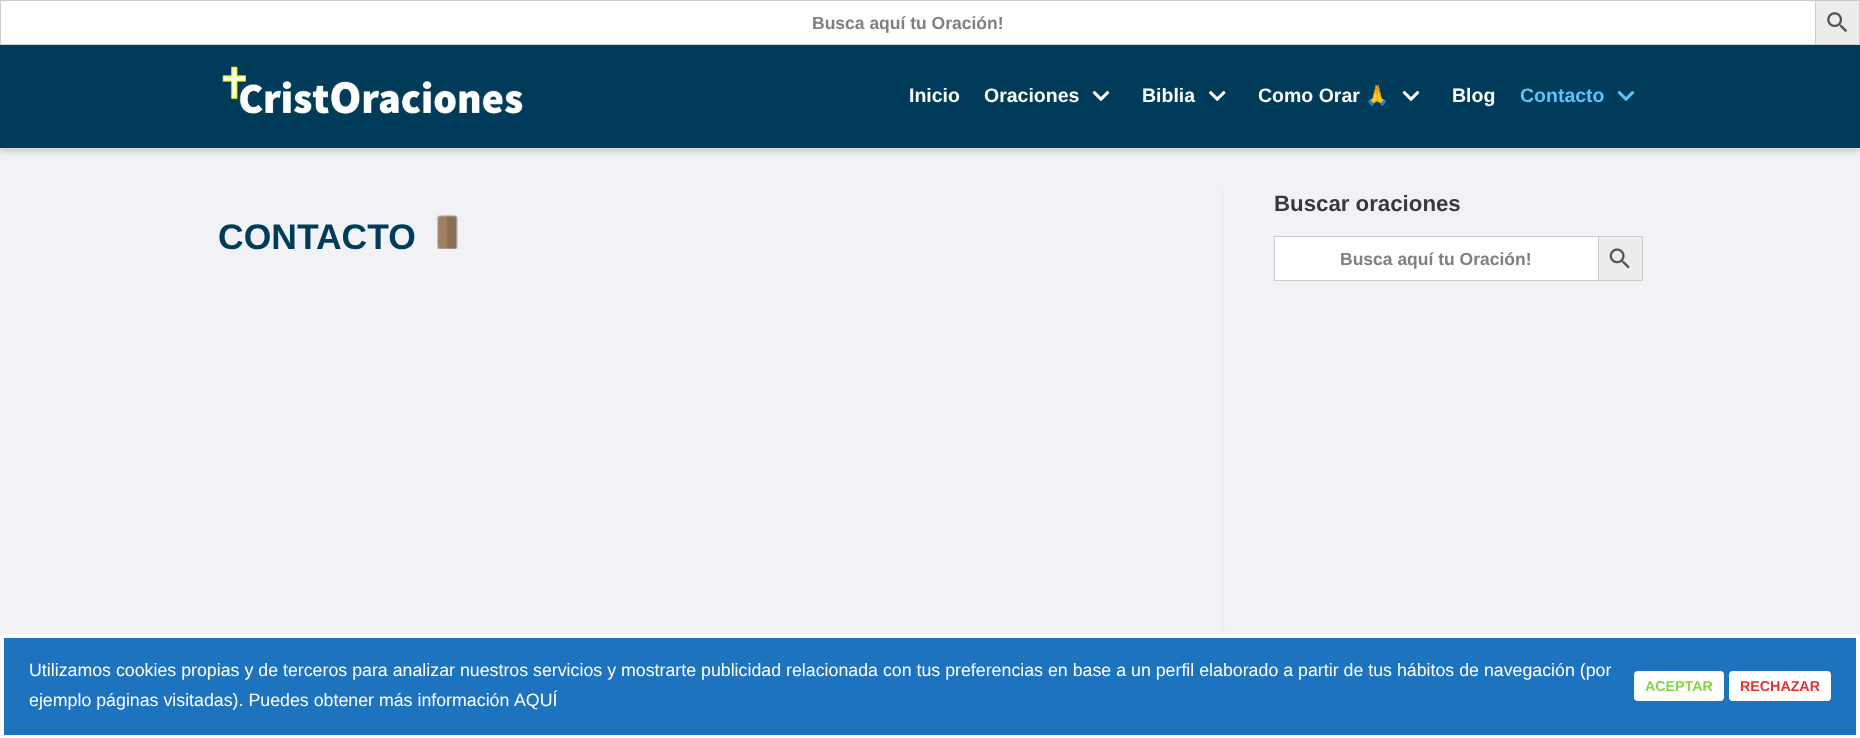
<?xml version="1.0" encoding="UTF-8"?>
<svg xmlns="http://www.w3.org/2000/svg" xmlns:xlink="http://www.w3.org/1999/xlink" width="1860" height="738">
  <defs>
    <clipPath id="clip1"><rect x="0" y="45" width="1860" height="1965" /></clipPath>
  </defs>
  <rect width="100%" height="100%" fill="#f0f2f5" />
  <rect x="1" y="1" width="1814" height="43" fill="#ffffff" />
  <rect width="1815" height="1" fill="#cccccc" />
  <rect y="44" width="1815" height="1" fill="#cccccc" />
  <rect width="1" height="45" fill="#cccccc" />
  <rect x="1815.5" y="0.5" width="44" height="44" fill="#ededed" stroke="#cccccc" />
  <image x="1827" y="12" width="21" height="21" xlink:href="image1.png" />
  <g clip-path="url(#clip1)">
    <rect y="44" width="1860" height="104" fill="#000000" fill-opacity="0.1" filter="blur(2px)" />
    <rect x="-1" y="44" width="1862" height="106" fill="#bdbdbd" filter="blur(4.5px)" />
  </g>
  <rect y="148" width="1860" height="1" fill="#e2e2e2" />
  <rect y="45" width="1860" height="103" fill="#003b5a" />
  <image x="222" y="66" width="301" height="48" xlink:href="image2.png" />
  <image x="1092" y="91" width="18" height="10" xlink:href="image3.png" />
  <image x="1209" y="91" width="17" height="10" xlink:href="image4.png" />
  <image x="1402" y="91" width="18" height="10" xlink:href="image3.png" />
  <image x="1617" y="91" width="18" height="10" xlink:href="image5.png" />
  <image x="437" y="215" width="21" height="34" xlink:href="image6.png" />
  <rect x="1223" y="186" width="1" height="448" fill="#ededed" />
  <rect x="1275" y="237" width="323" height="43" fill="#ffffff" />
  <rect x="1274" y="236" width="324" height="1" fill="#cccccc" />
  <rect x="1274" y="280" width="324" height="1" fill="#cccccc" />
  <rect x="1274" y="236" width="1" height="45" fill="#cccccc" />
  <rect x="1598.5" y="236.5" width="44" height="44" fill="#ededed" stroke="#cccccc" />
  <image x="1609" y="248" width="21" height="21" xlink:href="image7.png" />
  <rect x="2" y="636" width="1856" height="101" rx="2" fill="#1e73be" stroke="#ffffff" stroke-width="4" />
  <rect x="1634" y="671" width="90" height="30" rx="4" fill="#ffffff" />
  <rect x="1729" y="671" width="102" height="30" rx="4" fill="#ffffff" />
  <text x="812" y="29" style="font-family: Liberation Sans; font-size: 17.5px; font-weight: bold; fill: #808080">Busca aquí tu Oración!</text>
  <text x="909" y="102" style="font-family: Liberation Sans; font-size: 19.5px; font-weight: bold; fill: #ffffff">Inicio</text>
  <text x="984" y="102" style="font-family: Liberation Sans; font-size: 19.5px; font-weight: bold; fill: #ffffff">Oraciones</text>
  <text x="1142" y="102" style="font-family: Liberation Sans; font-size: 19.5px; font-weight: bold; fill: #ffffff">Biblia</text>
  <text x="1258" y="102" style="font-family: Liberation Sans; font-size: 19.5px; font-weight: bold; fill: #ffffff">Como Orar</text>
  <text x="1365" y="102" style="font-family: Noto Color Emoji; font-size: 19.5px; font-weight: bold; fill: #ffffff">🙏</text>
  <text x="1452" y="102" style="font-family: Liberation Sans; font-size: 19.5px; font-weight: bold; fill: #ffffff">Blog</text>
  <text x="1520" y="102" style="font-family: Liberation Sans; font-size: 19.5px; font-weight: bold; fill: #59c6ff">Contacto</text>
  <text x="218" y="249" style="font-family: Liberation Sans; font-size: 35.5px; font-weight: bold; fill: #003b5a">CONTACTO</text>
  <text x="1274" y="211" style="font-family: Liberation Sans; font-size: 22.25px; font-weight: bold; fill: #393939">Buscar oraciones</text>
  <text x="1340" y="265" style="font-family: Liberation Sans; font-size: 17.5px; font-weight: bold; fill: #808080">Busca aquí tu Oración!</text>
  <text x="29" y="676" style="font-family: Liberation Sans; font-size: 17.8px; fill: #ffffff">Utilizamos cookies propias y de terceros para analizar nuestros servicios y mostrarte publicidad relacionada con tus preferencias en base a un perfil elaborado a partir de tus hábitos de navegación (por</text>
  <text x="29" y="706" style="font-family: Liberation Sans; font-size: 17.8px; fill: #ffffff">ejemplo páginas visitadas). Puedes obtener más información</text>
  <text x="514" y="706" style="font-family: Liberation Sans; font-size: 17.8px; fill: #ffffff">AQUÍ</text>
  <text x="1645" y="691" style="font-family: Liberation Sans; font-size: 14.25px; font-weight: bold; fill: #81d742">ACEPTAR</text>
  <text x="1740" y="691" style="font-family: Liberation Sans; font-size: 14.25px; font-weight: bold; fill: #dd3333">RECHAZAR</text>
</svg>
